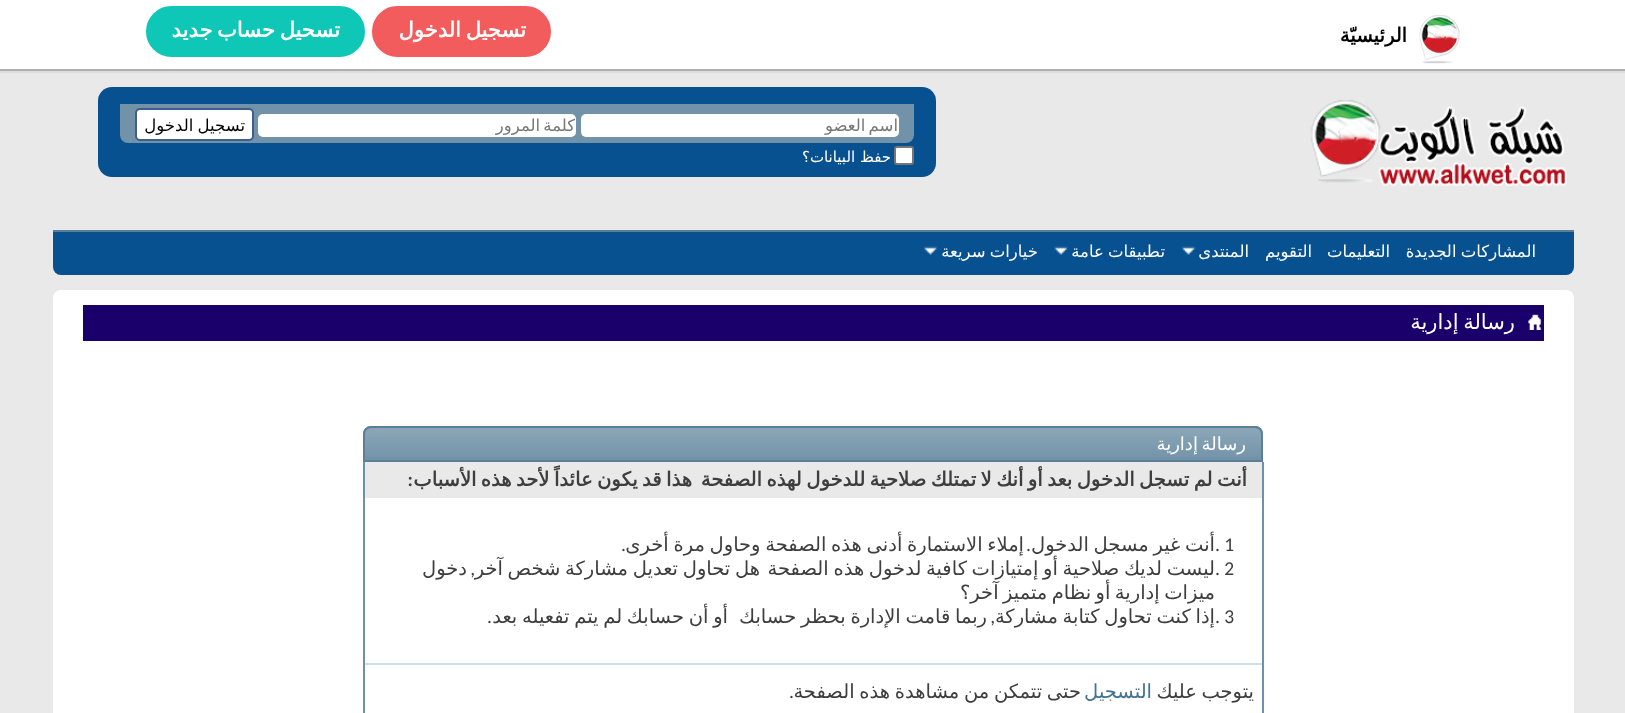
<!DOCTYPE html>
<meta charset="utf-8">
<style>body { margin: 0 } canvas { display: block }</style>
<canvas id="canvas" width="1625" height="713"></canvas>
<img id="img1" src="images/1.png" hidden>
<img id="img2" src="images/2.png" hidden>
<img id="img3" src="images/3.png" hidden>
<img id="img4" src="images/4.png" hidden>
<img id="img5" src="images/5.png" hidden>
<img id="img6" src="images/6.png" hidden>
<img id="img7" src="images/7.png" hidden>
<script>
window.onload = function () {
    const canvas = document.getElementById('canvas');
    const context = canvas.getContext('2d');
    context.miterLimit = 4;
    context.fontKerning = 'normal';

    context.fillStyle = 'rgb(233, 233, 233)';
    context.fillRect(0, 0, 1625, 713);
    context.fillStyle = 'rgb(221, 221, 221)';
    context.fillRect(0, 71, 1625, 2);
    context.fillStyle = 'rgb(175, 175, 175)';
    context.fillRect(0, 69, 1625, 2);
    context.fillStyle = 'rgb(255, 255, 255)';
    context.fillRect(0, 0, 1625, 69);
    context.drawImage(document.getElementById('img1'), 1419, 15, 41, 49);
    context.fillStyle = 'rgb(243, 92, 92)';
    context.beginPath();
    context.roundRect(373, 7, 177, 49, 24.5);
    context.fill();
    context.strokeStyle = 'rgb(243, 92, 92)';
    context.lineWidth = 2;
    context.stroke();
    context.fillStyle = 'rgb(15, 199, 182)';
    context.beginPath();
    context.roundRect(147, 7, 217, 49, 24.5);
    context.fill();
    context.strokeStyle = 'rgb(15, 199, 182)';
    context.stroke();
    context.drawImage(document.getElementById('img2'), 1310, 99, 257, 87);
    context.fillStyle = 'rgb(7, 81, 144)';
    context.beginPath();
    context.roundRect(98, 87, 838, 90, 14);
    context.fill();
    context.fillStyle = 'rgb(113, 146, 168)';
    context.beginPath();
    context.roundRect(120, 104, 794, 39, [0, 0, 8, 8]);
    context.fill();
    context.fillStyle = 'rgb(255, 255, 255)';
    context.beginPath();
    context.roundRect(581, 114, 318, 23, 5);
    context.fill();
    context.beginPath();
    context.roundRect(258, 114, 318, 23, 5);
    context.fill();
    context.beginPath();
    context.roundRect(136, 109, 117, 31, 4);
    context.fill();
    context.strokeStyle = 'rgb(65, 93, 141)';
    context.stroke();
    context.beginPath();
    context.roundRect(895, 147, 18, 17, 2);
    context.fill();
    context.strokeStyle = 'rgb(118, 118, 118)';
    context.stroke();
    context.fillStyle = 'rgb(7, 81, 144)';
    context.beginPath();
    context.roundRect(53, 230, 1521, 45, [0, 0, 8, 8]);
    context.fill();
    context.fillStyle = 'rgb(90, 127, 151)';
    context.fillRect(53, 230, 1521, 2);
    context.drawImage(document.getElementById('img3'), 1181, 246, 15, 9);
    context.drawImage(document.getElementById('img4'), 1054, 246, 14, 9);
    context.drawImage(document.getElementById('img5'), 923, 246, 15, 9);
    context.fillStyle = 'rgb(255, 255, 255)';
    context.beginPath();
    context.roundRect(53, 290, 1521, 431, 8);
    context.fill();
    context.fillStyle = 'rgb(26, 0, 107)';
    context.fillRect(83, 305, 1461, 36);
    context.drawImage(document.getElementById('img6'), 1528, 314, 15, 16);
    context.fillStyle = 'rgb(113, 146, 168)';
    context.beginPath();
    context.roundRect(363, 426, 900, 36, [8, 8, 0, 0]);
    context.fill();
    context.drawImage(document.getElementById('img7'), 363, 427, 900, 30);
    context.beginPath();
    context.roundRect(364, 427, 898, 34, [7, 7, 0, 0]);
    context.strokeStyle = 'rgb(90, 127, 151)';
    context.stroke();
    context.fillStyle = 'rgb(107, 145, 171)';
    context.fillRect(1262, 462, 2, 251);
    context.fillRect(363, 462, 2, 251);
    context.fillStyle = 'rgb(233, 233, 233)';
    context.fillRect(365, 462, 897, 36);
    context.fillStyle = 'rgb(206, 223, 235)';
    context.fillRect(365, 663, 897, 2);
    context.direction = 'rtl';
    context.font = 'bold 19.5px DejaVu Sans';
    context.fillStyle = 'rgb(0, 0, 0)';
    context.fillText('الرئيسيّة', 1407, 42);
    context.wordSpacing = '-2px';
    context.font = 'bold 21px DejaVu Sans';
    context.fillStyle = 'rgb(255, 255, 255)';
    context.fillText('تسجيل الدخول', 526, 37);
    context.fillText('تسحيل حساب جديد', 340, 37);
    context.save();
    context.beginPath();
    context.rect(582, 116, 315, 19);
    context.clip();
    context.font = '16.5px DejaVu Sans';
    context.fillStyle = 'rgb(119, 119, 119)';
    context.fillText('اسم العضو', 898, 131);
    context.restore();
    context.save();
    context.beginPath();
    context.rect(260, 116, 315, 19);
    context.clip();
    context.font = '16.5px DejaVu Sans';
    context.fillStyle = 'rgb(119, 119, 119)';
    context.fillText('كلمة المرور', 575, 131);
    context.restore();
    context.wordSpacing = '-1px';
    context.font = '16.5px DejaVu Sans';
    context.fillStyle = 'rgb(0, 0, 0)';
    context.fillText('تسجيل الدخول', 245, 131);
    context.wordSpacing = '0px';
    context.font = '15px DejaVu Sans';
    context.fillStyle = 'rgb(255, 255, 255)';
    context.fillText('حفظ البيانات؟', 891, 162);
    context.wordSpacing = '-1px';
    context.font = '16.5px DejaVu Sans';
    context.fillText('المشاركات الجديدة', 1536, 257);
    context.wordSpacing = '0px';
    context.fillText('التعليمات', 1390, 257);
    context.fillText('التقويم', 1312, 257);
    context.fillText('المنتدى', 1249, 257);
    context.wordSpacing = '-1px';
    context.fillText('تطبيقات عامة', 1165, 257);
    context.fillText('خيارات سريعة', 1038, 257);
    context.wordSpacing = '-2px';
    context.font = '21px DejaVu Sans';
    context.fillText('رسالة إدارية', 1515, 329);
    context.font = '18px DejaVu Sans';
    context.fillText('رسالة إدارية', 1246, 450);
    context.wordSpacing = '-1.75px';
    context.font = 'bold 19.5px DejaVu Sans';
    context.fillStyle = 'rgb(62, 62, 62)';
    context.fillText('أنت لم تسجل الدخول بعد أو أنك لا تمتلك صلاحية للدخول لهذه الصفحة', 1247, 486);
    context.fillText('هذا قد يكون عائداً لأحد هذه الأسباب', 692, 486);
    context.wordSpacing = '0px';
    context.font = 'bold 19.5px Carlito';
    context.fillText(':', 413, 486);
    context.direction = 'ltr';
    context.font = '19.5px Carlito';
    context.fillText('. 1', 1215, 551);
    context.wordSpacing = '-1.5px';
    context.direction = 'rtl';
    context.font = '19.5px DejaVu Sans';
    context.fillText('إملاء الاستمارة أدنى هذه الصفحة وحاول مرة أخرى', 1024, 551);
    context.fillText('أنت غير مسجل الدخول', 1215, 551);
    context.wordSpacing = '0px';
    context.font = '19.5px Carlito';
    context.fillText('.', 626, 551);
    context.fillText('.', 1031, 551);
    context.direction = 'ltr';
    context.fillText('. 2', 1215, 575);
    context.wordSpacing = '-1.5px';
    context.direction = 'rtl';
    context.font = '19.5px DejaVu Sans';
    context.fillText('ليست لديك صلاحية أو إمتيازات كافية لدخول هذه الصفحة', 1215, 575);
    context.fillText('هل تحاول تعديل مشاركة شخص آخر', 760, 575);
    context.wordSpacing = '0px';
    context.font = '19.5px Carlito';
    context.fillText(',', 475, 575);
    context.font = '19.5px DejaVu Sans';
    context.fillText('دخول', 467, 575);
    context.wordSpacing = '-1.75px';
    context.fillText('ميزات إدارية أو نظام متميز آخر؟', 1215, 599);
    context.wordSpacing = '0px';
    context.direction = 'ltr';
    context.font = '19.5px Carlito';
    context.fillText('. 3', 1215, 623);
    context.wordSpacing = '-1.5px';
    context.direction = 'rtl';
    context.font = '19.5px DejaVu Sans';
    context.fillText('إذا كنت تحاول كتابة مشاركة', 1215, 623);
    context.fillText('ربما قامت الإدارة بحظر حسابك', 987, 623);
    context.wordSpacing = '0px';
    context.font = '19.5px Carlito';
    context.fillText(',', 995, 623);
    context.wordSpacing = '-1.5px';
    context.font = '19.5px DejaVu Sans';
    context.fillText('أو أن حسابك لم يتم تفعيله بعد', 728, 623);
    context.wordSpacing = '0px';
    context.font = '19.5px Carlito';
    context.fillText('.', 492, 623);
    context.wordSpacing = '-1.75px';
    context.font = '19.5px DejaVu Sans';
    context.fillText('يتوجب عليك', 1254, 698);
    context.wordSpacing = '0px';
    context.fillStyle = 'rgb(65, 115, 148)';
    context.fillText('التسجيل', 1152, 698);
    context.wordSpacing = '-1.5px';
    context.fillStyle = 'rgb(62, 62, 62)';
    context.fillText('حتى تتمكن من مشاهدة هذه الصفحة', 1081, 698);
    context.wordSpacing = '0px';
    context.font = '19.5px Carlito';
    context.fillText('.', 794, 698);
};
</script>
